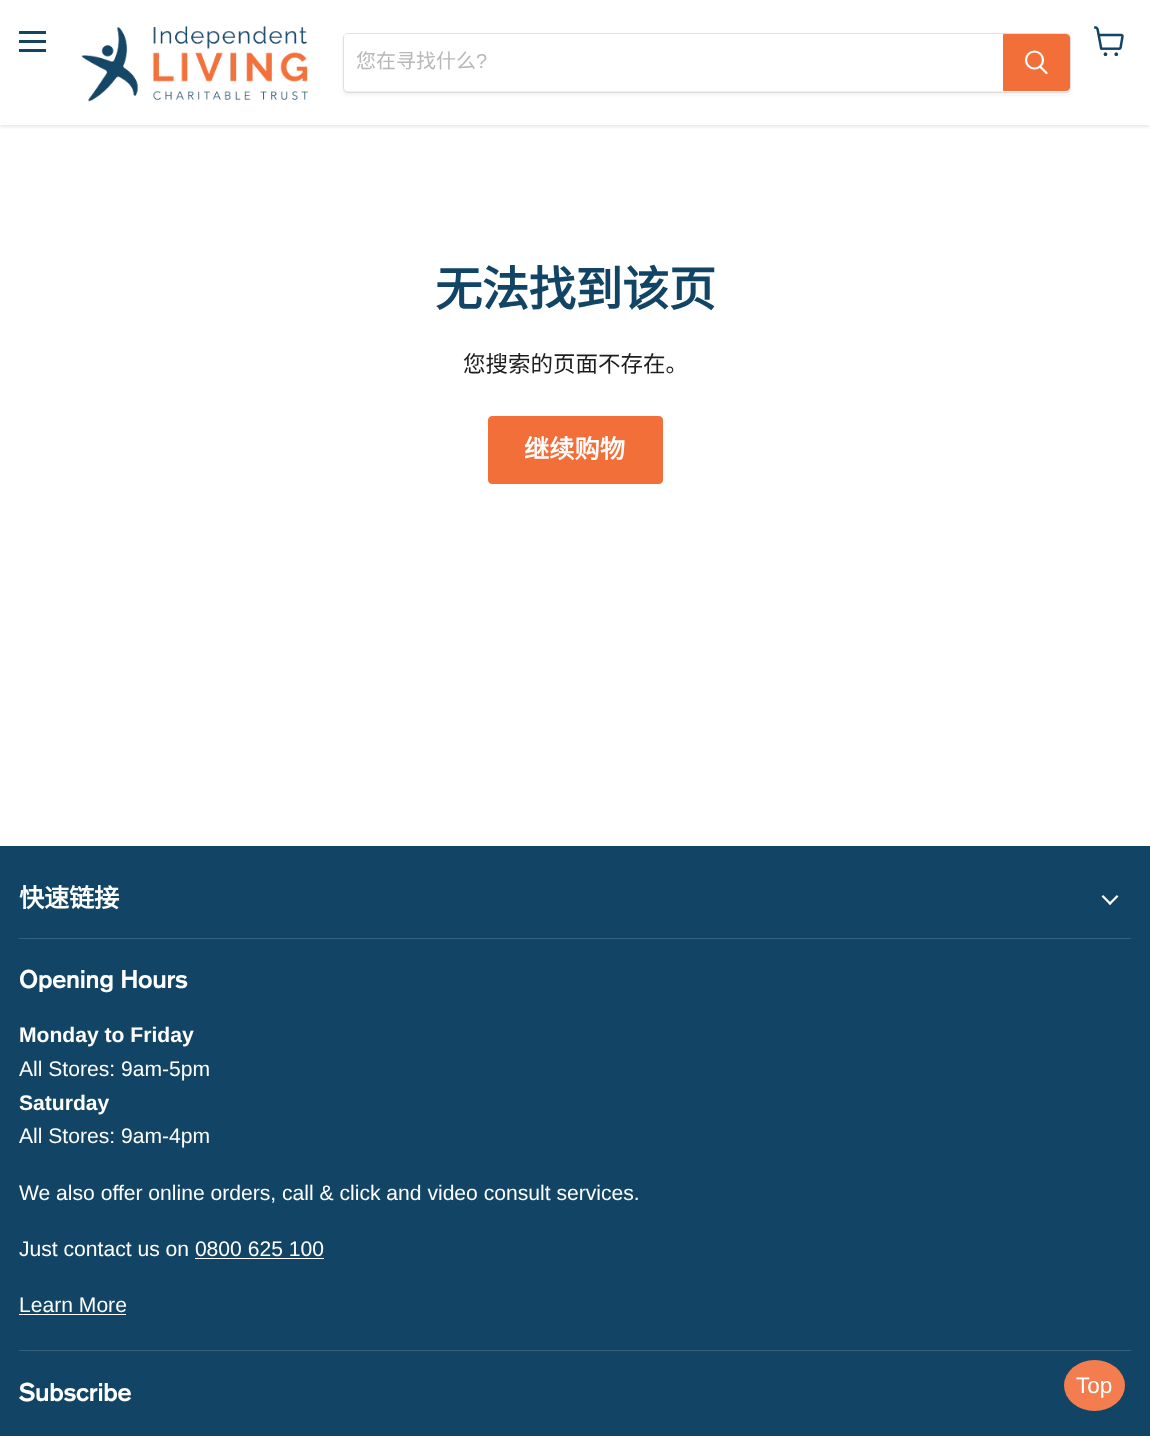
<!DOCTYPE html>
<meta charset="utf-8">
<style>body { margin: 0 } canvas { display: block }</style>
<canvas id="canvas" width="1150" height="1436"></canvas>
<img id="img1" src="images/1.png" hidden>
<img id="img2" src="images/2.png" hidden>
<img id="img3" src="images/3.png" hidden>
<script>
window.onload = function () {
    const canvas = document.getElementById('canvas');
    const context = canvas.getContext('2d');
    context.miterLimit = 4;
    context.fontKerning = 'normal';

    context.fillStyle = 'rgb(255, 255, 255)';
    context.fillRect(0, 0, 1150, 1436);
    context.save();
    context.beginPath();
    context.rect(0, 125, 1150, 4);
    context.clip();
    context.fillStyle = 'rgba(128, 128, 128, 0.25)';
    context.filter = 'blur(2.5px)';
    context.beginPath();
    context.rect(0, 1, 1150, 125);
    context.fill();
    context.filter = 'none';
    context.restore();
    context.fillStyle = 'rgb(18, 69, 101)';
    context.fillRect(19, 31, 27, 3);
    context.fillRect(19, 40, 27, 3);
    context.fillRect(19, 49, 27, 3);
    context.drawImage(document.getElementById('img1'), 1094, 26, 30, 30);
    context.drawImage(document.getElementById('img2'), 81, 26, 227, 76);
    context.fillStyle = 'rgba(128, 128, 128, 0.11)';
    context.filter = 'blur(2px)';
    context.beginPath();
    context.roundRect(343, 35, 728, 60, 5);
    context.fill();
    context.filter = 'none';
    context.beginPath();
    context.roundRect(343.5, 33.5, 727, 59, 4.5);
    context.strokeStyle = 'rgba(128, 128, 128, 0.2)';
    context.stroke();
    context.fillStyle = 'rgb(255, 255, 255)';
    context.beginPath();
    context.roundRect(344, 34, 659, 57, [4, 0, 0, 4]);
    context.fill();
    context.fillStyle = 'rgb(242, 111, 58)';
    context.beginPath();
    context.roundRect(1003.5, 34.5, 66, 56, [0, 3.5, 3.5, 0]);
    context.fill();
    context.strokeStyle = 'rgb(242, 111, 58)';
    context.stroke();
    context.beginPath();
    context.moveTo(1046.5, 73);
    context.lineTo(1040.5, 67);
    context.strokeStyle = 'rgb(255, 255, 255)';
    context.lineWidth = 2.2;
    context.lineCap = 'round';
    context.stroke();
    context.beginPath();
    context.arc(1034.5, 60, 8.5, 0, 2 * Math.PI);
    context.stroke();
    context.beginPath();
    context.roundRect(488.5, 416.5, 174, 67, 3.5);
    context.fill();
    context.strokeStyle = 'rgb(242, 111, 58)';
    context.lineWidth = 1;
    context.stroke();
    context.fillStyle = 'rgb(18, 69, 101)';
    context.fillRect(0, 846, 1150, 590);
    context.fillStyle = 'rgb(54, 97, 124)';
    context.fillRect(19, 938, 1112, 1);
    context.drawImage(document.getElementById('img3'), 1101, 895, 18, 10);
    context.fillRect(19, 1350, 1112, 1);
    context.fillStyle = 'rgb(255, 255, 255)';
    context.fillRect(195, 1258, 129, 1);
    context.fillRect(19, 1314, 107, 1);
    context.fillStyle = 'rgb(243, 125, 78)';
    context.beginPath();
    context.ellipse(1094.5, 1385.5, 30.5, 25.5, 0, 0, 2 * Math.PI);
    context.fill();
    context.font = '20px Noto Sans CJK SC';
    context.fillStyle = 'rgb(184, 184, 184)';
    context.fillText('您在寻找什么', 356, 68);
    context.font = '20px Liberation Sans';
    context.fillText('?', 476, 68);
    context.letterSpacing = '-0.5px';
    context.font = 'bold 47.25px Noto Sans CJK SC';
    context.fillStyle = 'rgb(18, 69, 101)';
    context.fillText('无法找到该页', 435, 306);
    context.letterSpacing = '0px';
    context.font = '22.5px Noto Sans CJK SC';
    context.fillStyle = 'rgb(29, 29, 29)';
    context.fillText('您搜索的页面不存在。', 463, 372);
    context.font = 'bold 25.25px Noto Sans CJK SC';
    context.fillStyle = 'rgb(255, 255, 255)';
    context.fillText('继续购物', 524, 458);
    context.letterSpacing = '-0.25px';
    context.fillText('快速链接', 19, 907);
    context.font = 'bold 25.25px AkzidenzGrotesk';
    context.fillText('Opening Hours', 19, 988);
    context.letterSpacing = '0px';
    context.font = 'bold 21.1px Liberation Sans';
    context.fillText('Monday to Friday', 19, 1042);
    context.font = '21.1px Liberation Sans';
    context.fillText('All Stores: 9am-5pm', 19, 1076);
    context.font = 'bold 21.1px Liberation Sans';
    context.fillText('Saturday', 19, 1110);
    context.font = '21.1px Liberation Sans';
    context.fillText('All Stores: 9am-4pm', 19, 1143);
    context.fillText('We also offer online orders, call & click and video consult services.', 19, 1200);
    context.fillText('Just contact us on 0800 625 100', 19, 1256);
    context.fillText('Learn More', 19, 1312);
    context.letterSpacing = '-0.25px';
    context.font = 'bold 25.25px AkzidenzGrotesk';
    context.fillText('Subscribe', 19, 1401);
    context.letterSpacing = '0px';
    context.font = '22.5px Liberation Sans';
    context.fillText('Top', 1076, 1393);
};
</script>
